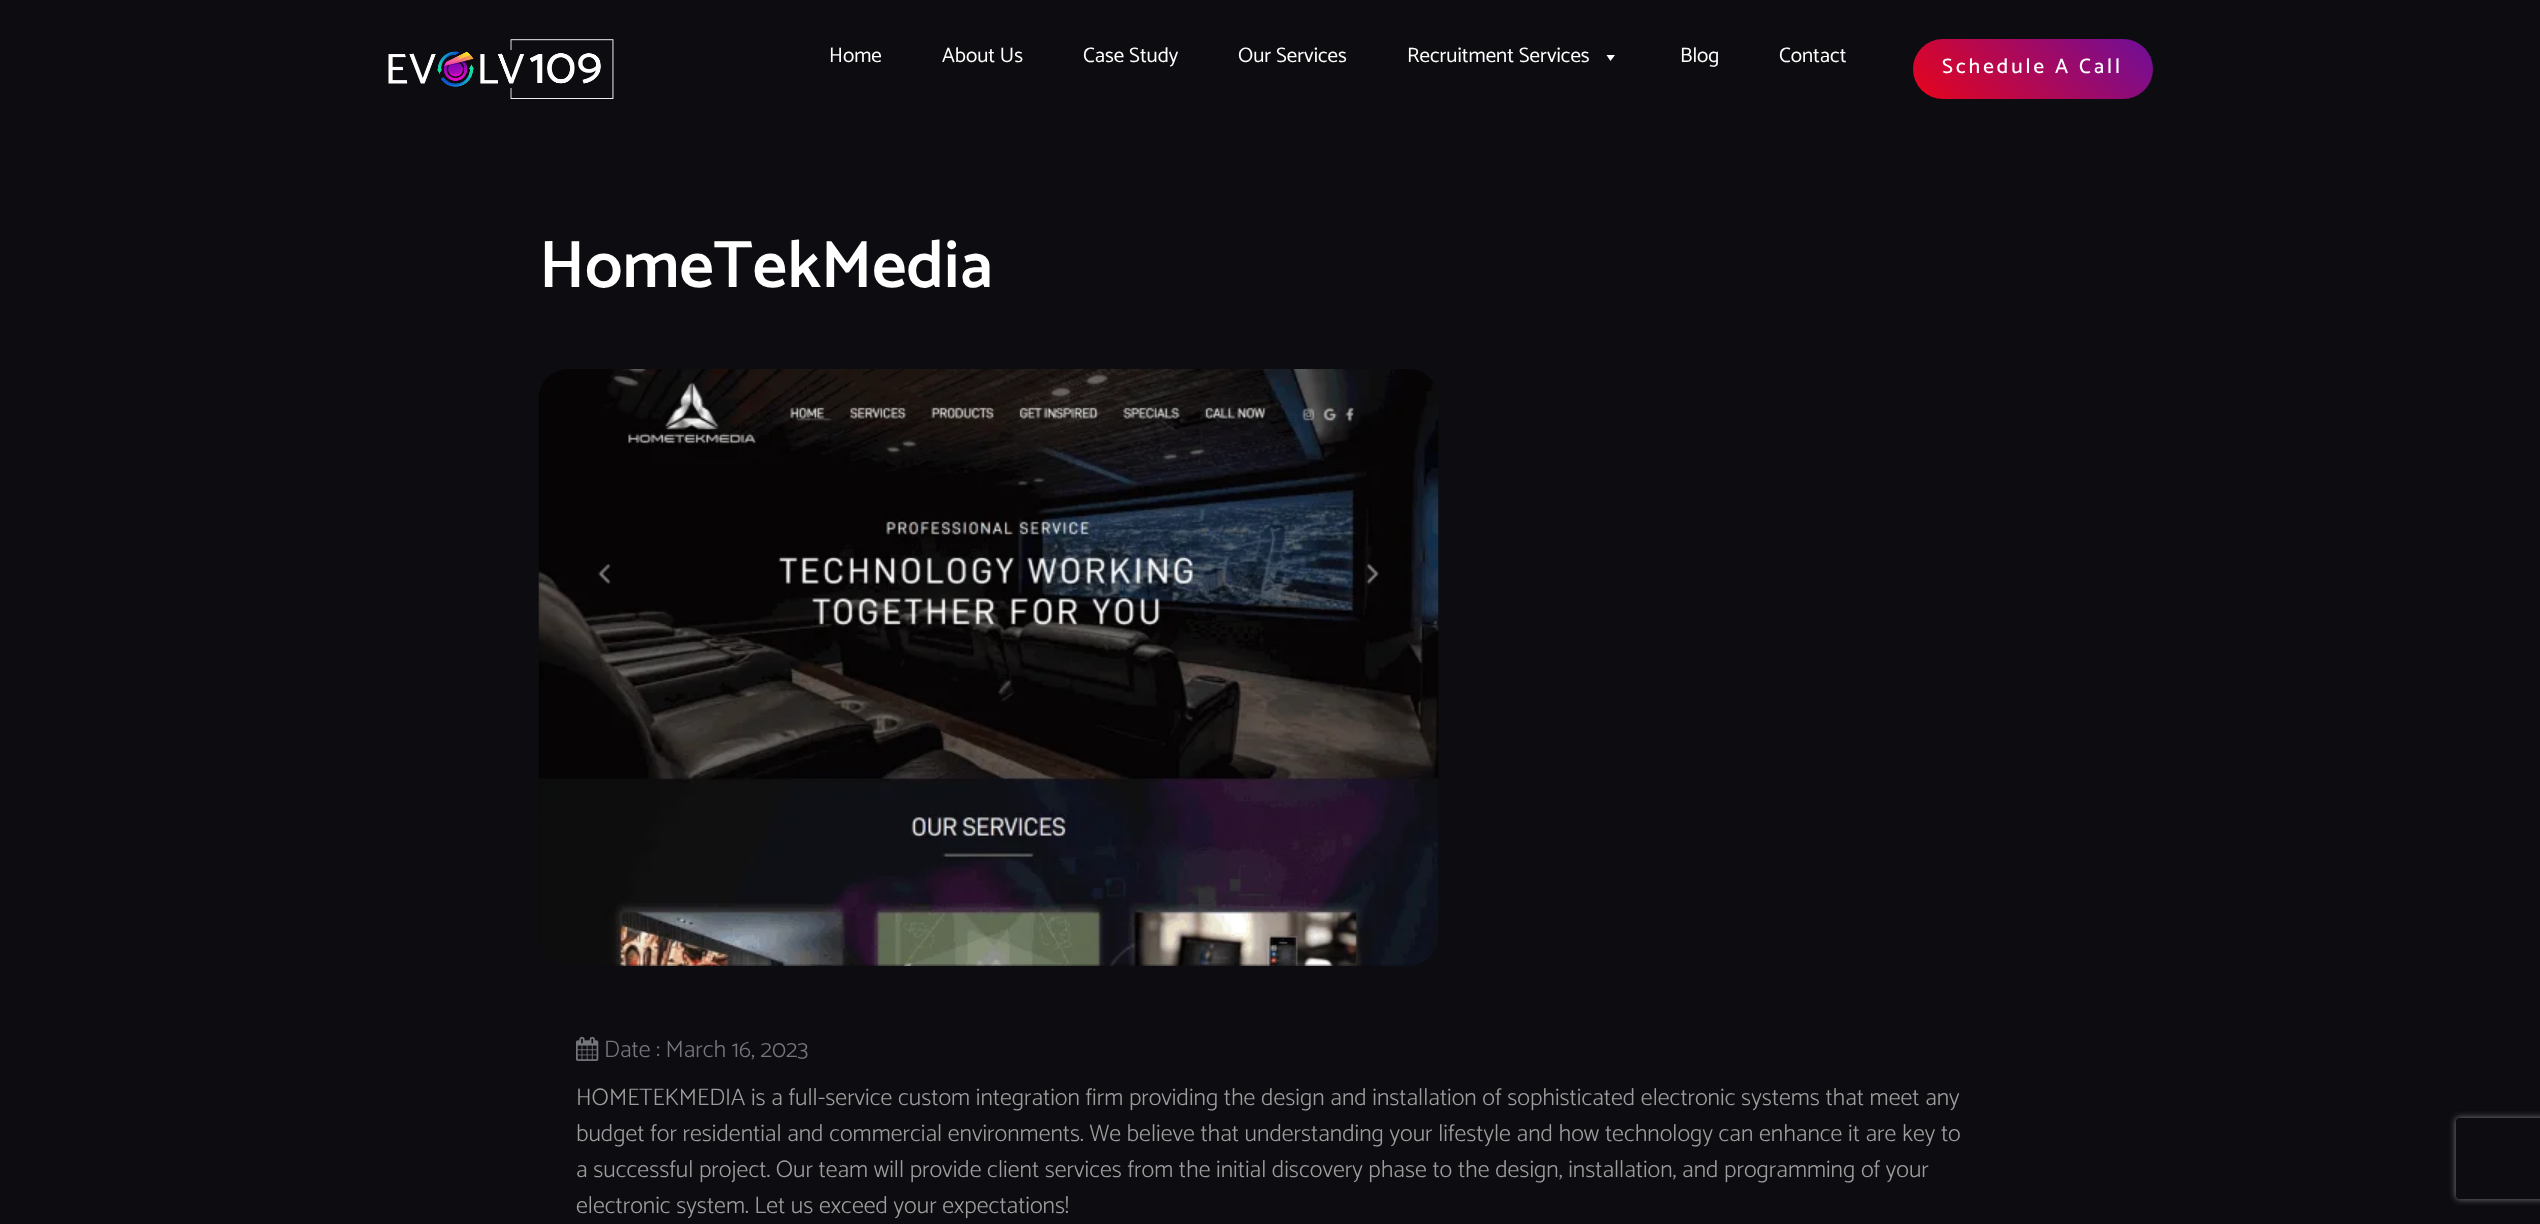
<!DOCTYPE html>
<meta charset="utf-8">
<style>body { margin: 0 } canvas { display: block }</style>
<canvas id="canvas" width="2540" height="1224"></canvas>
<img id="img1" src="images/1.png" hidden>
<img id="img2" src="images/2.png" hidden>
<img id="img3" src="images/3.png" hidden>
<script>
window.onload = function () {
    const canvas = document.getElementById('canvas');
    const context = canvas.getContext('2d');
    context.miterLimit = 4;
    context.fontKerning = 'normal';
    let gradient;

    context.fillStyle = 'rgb(13, 13, 17)';
    context.fillRect(0, 0, 2540, 1224);
    context.drawImage(document.getElementById('img1'), 388, 39, 226, 60);
    context.fillStyle = 'rgb(255, 255, 255)';
    context.beginPath();
    context.moveTo(1615, 55);
    context.lineTo(1610.5, 61);
    context.lineTo(1606.5, 55);
    context.closePath();
    context.fill();
    gradient = context.createLinearGradient(2003, 249, 2303, -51);
    gradient.addColorStop(0, 'rgb(255, 2, 2)');
    gradient.addColorStop(1, 'rgb(14, 22, 255)');
    context.fillStyle = gradient;
    context.beginPath();
    context.roundRect(1913, 39, 240, 60, 30);
    context.fill();
    context.drawImage(document.getElementById('img2'), 538, 369, 901, 597);
    context.drawImage(document.getElementById('img3'), 576, 1036, 23, 25);
    context.save();
    context.beginPath();
    context.moveTo(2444, 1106);
    context.lineTo(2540, 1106);
    context.lineTo(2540, 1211);
    context.lineTo(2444, 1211);
    context.closePath();
    context.moveTo(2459, 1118);
    context.lineTo(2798, 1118);
    context.bezierCurveTo(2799.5, 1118, 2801, 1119.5, 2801, 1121);
    context.lineTo(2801, 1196);
    context.bezierCurveTo(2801, 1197.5, 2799.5, 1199, 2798, 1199);
    context.lineTo(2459, 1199);
    context.bezierCurveTo(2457.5, 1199, 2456, 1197.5, 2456, 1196);
    context.lineTo(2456, 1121);
    context.bezierCurveTo(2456, 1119.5, 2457.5, 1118, 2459, 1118);
    context.closePath();
    context.clip('evenodd');
    context.fillStyle = 'rgb(128, 128, 128)';
    context.filter = 'blur(3.5px)';
    context.beginPath();
    context.roundRect(2456, 1118, 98, 81, 3);
    context.fill();
    context.filter = 'none';
    context.restore();
    context.font = '21px Catamaran';
    context.fillStyle = 'rgb(255, 255, 255)';
    context.fillText('Home', 829, 62);
    context.fillText('About Us', 942, 62);
    context.fillText('Case Study', 1083, 62);
    context.fillText('Our Services', 1238, 62);
    context.fillText('Recruitment Services', 1407, 62);
    context.fillText('Blog', 1680, 62);
    context.fillText('Contact', 1779, 62);
    context.letterSpacing = '3px';
    context.font = '500 21px Catamaran';
    context.fillText('Schedule A Call', 1942, 73);
    context.letterSpacing = '0px';
    context.font = '600 67.25px Catamaran';
    context.fillText('HomeTekMedia', 539, 287);
    context.font = '300 24px Catamaran';
    context.fillStyle = 'rgb(117, 117, 127)';
    context.fillText('Date : March 16, 2023', 604, 1057);
    context.fillStyle = 'rgb(156, 156, 156)';
    context.fillText('HOMETEKMEDIA is a full-service custom integration firm providing the design and installation of sophisticated electronic systems that meet any', 576, 1105);
    context.fillText('budget for residential and commercial environments. We believe that understanding your lifestyle and how technology can enhance it are key to', 576, 1141);
    context.fillText('a successful project. Our team will provide client services from the initial discovery phase to the design, installation, and programming of your', 576, 1177);
    context.fillText('electronic system. Let us exceed your expectations!', 576, 1213);
};
</script>
